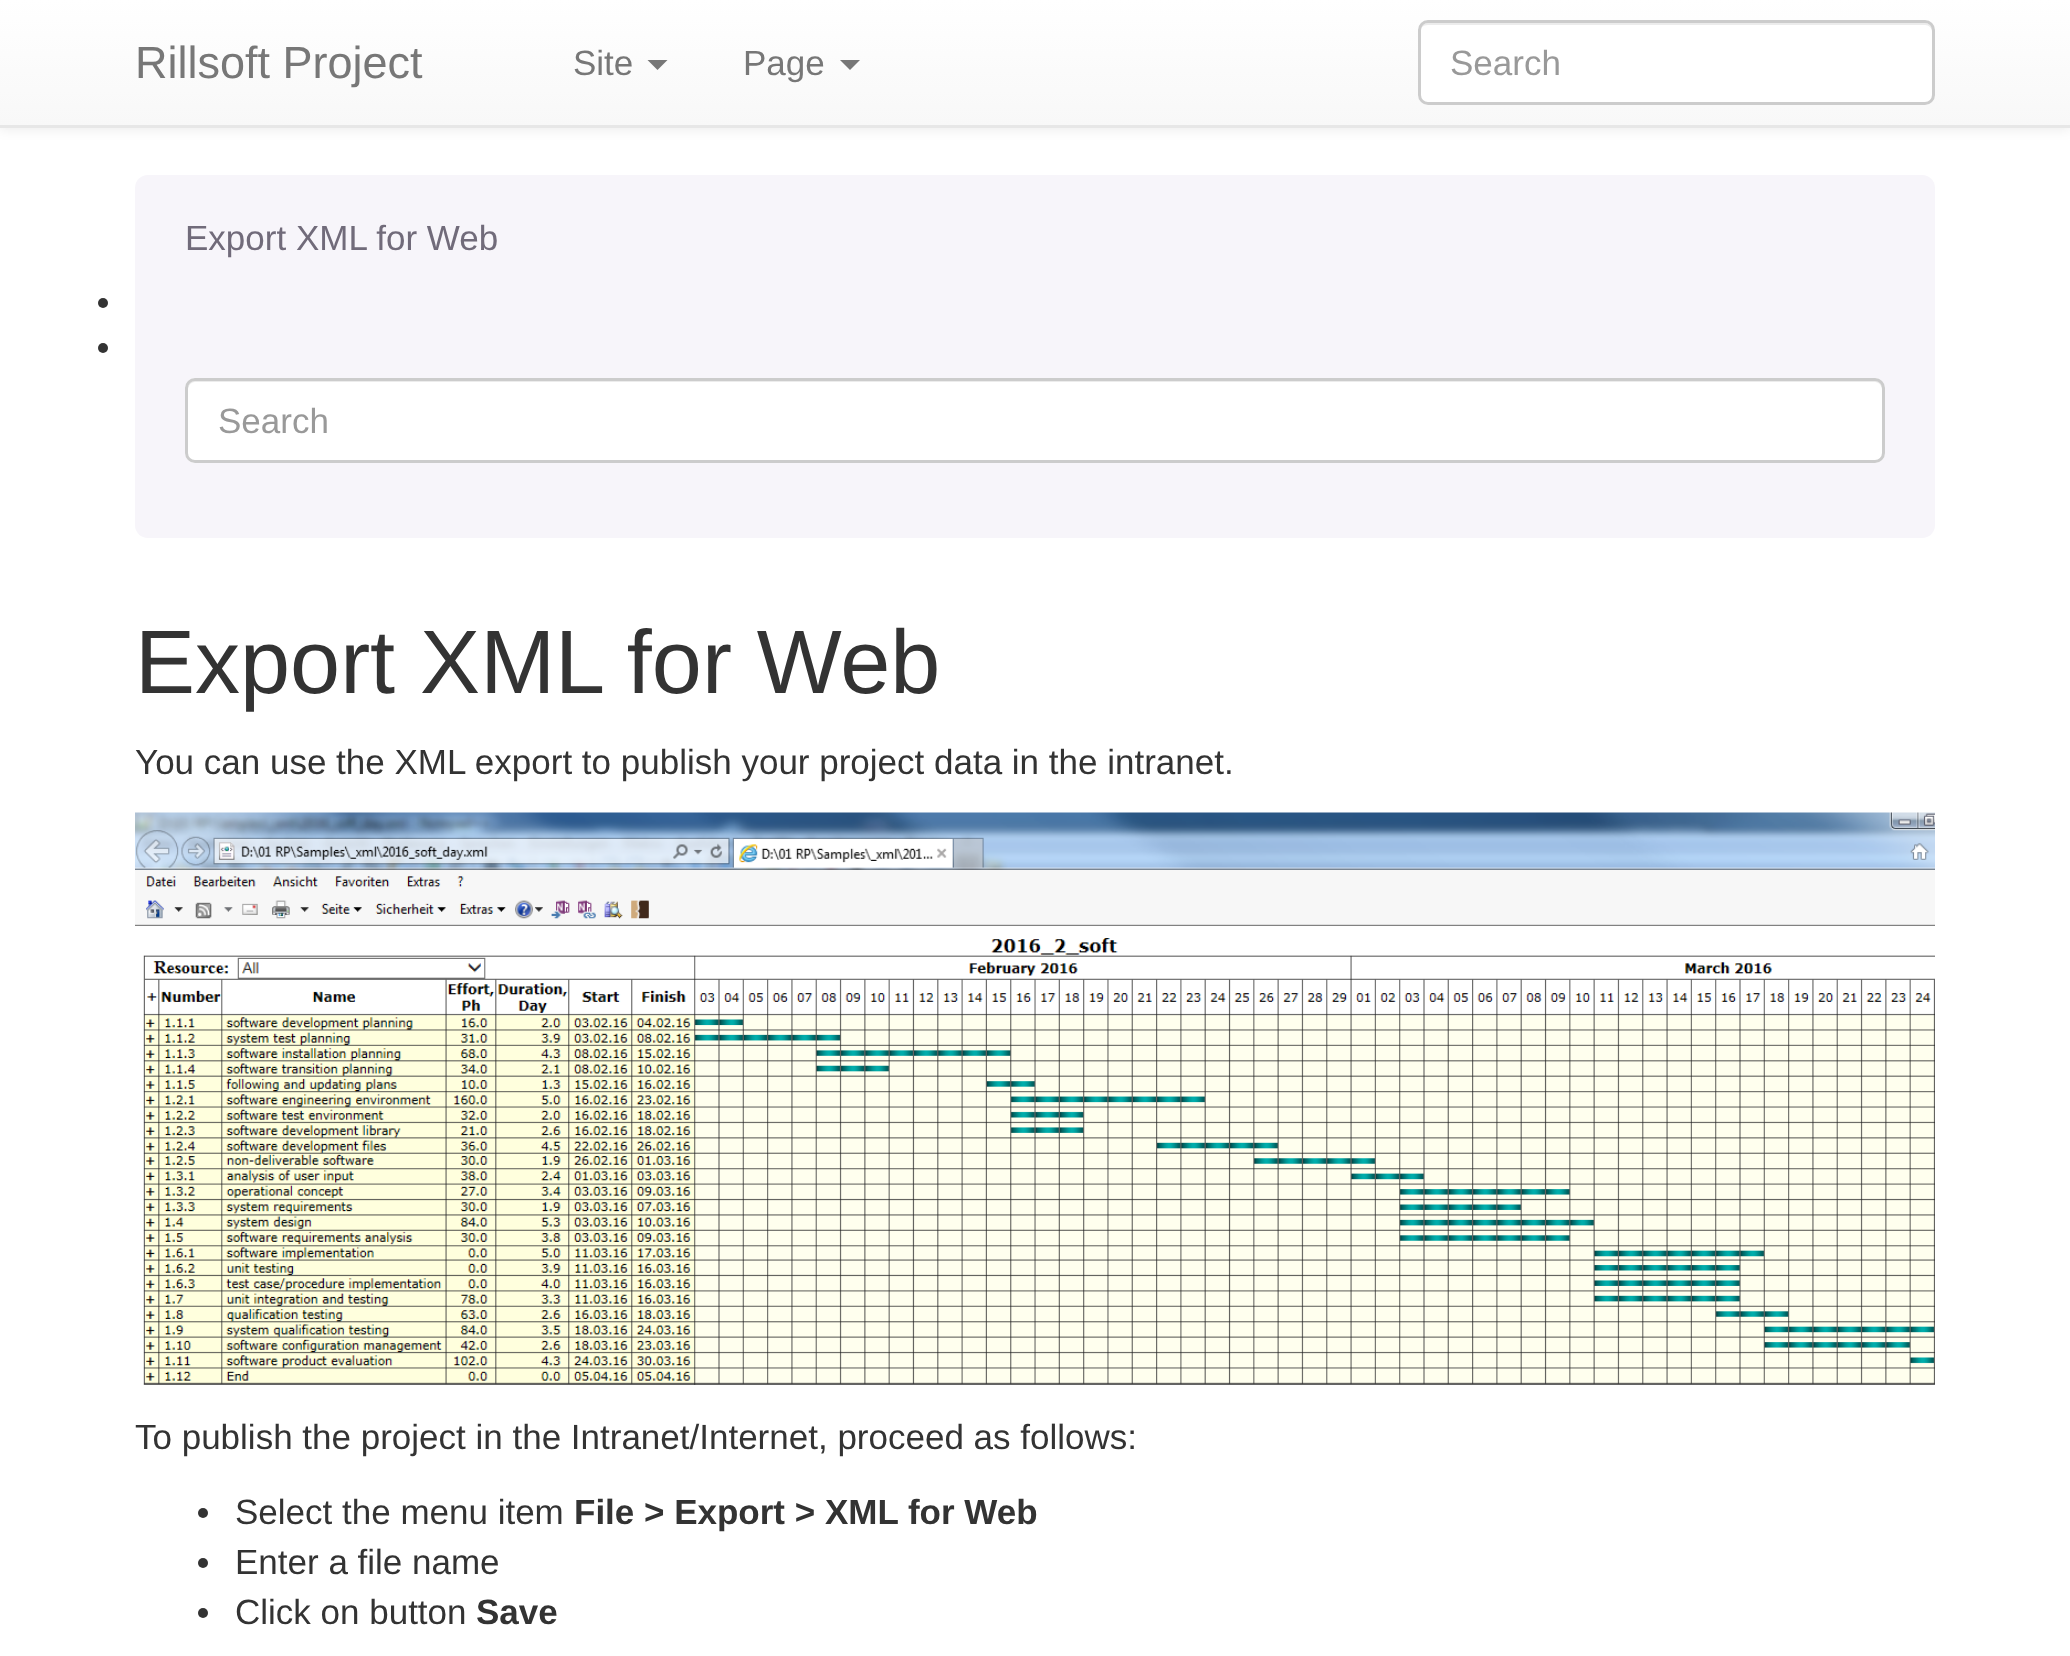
<!DOCTYPE html>
<meta charset="utf-8">
<style>body { margin: 0 } canvas { display: block }</style>
<canvas id="canvas" width="2070" height="1656"></canvas>
<img id="img1" src="images/1.png" hidden>
<script>
window.onload = function () {
    const canvas = document.getElementById('canvas');
    const context = canvas.getContext('2d');
    context.miterLimit = 4;
    context.fontKerning = 'normal';
    let gradient;

    context.fillStyle = 'rgb(255, 255, 255)';
    context.fillRect(0, 0, 2070, 1656);
    context.fillStyle = 'rgba(0, 0, 0, 0.07)';
    context.filter = 'blur(6px)';
    context.beginPath();
    context.rect(0, 3, 2070, 127);
    context.fill();
    context.filter = 'none';
    gradient = context.createLinearGradient(1035, 0, 1035, 125);
    gradient.addColorStop(0, 'rgb(255, 255, 255)');
    gradient.addColorStop(1, 'rgb(248, 248, 248)');
    context.fillStyle = gradient;
    context.fillRect(0, 0, 2070, 125);
    context.fillStyle = 'rgb(231, 231, 231)';
    context.fillRect(0, 125, 2070, 3);
    context.fillStyle = 'rgb(119, 119, 119)';
    context.beginPath();
    context.moveTo(647.5, 60);
    context.lineTo(667.5, 60);
    context.lineTo(657.5, 70);
    context.closePath();
    context.fill();
    context.beginPath();
    context.moveTo(840, 60);
    context.lineTo(860, 60);
    context.lineTo(850, 70);
    context.closePath();
    context.fill();
    context.fillStyle = 'rgb(255, 255, 255)';
    context.beginPath();
    context.roundRect(1418, 20, 517, 85, 10);
    context.fill();
    context.fillStyle = 'rgb(236, 236, 236)';
    context.beginPath();
    context.moveTo(1428, 25);
    context.lineTo(1925, 25);
    context.bezierCurveTo(1929, 25, 1932, 28, 1932, 32);
    context.lineTo(1932, 99);
    context.bezierCurveTo(1933, 98, 1933, 96, 1933, 95);
    context.lineTo(1933, 31);
    context.bezierCurveTo(1933, 27, 1929, 23, 1925, 23);
    context.lineTo(1428, 23);
    context.bezierCurveTo(1424, 23, 1420, 27, 1420, 31);
    context.lineTo(1420, 32);
    context.bezierCurveTo(1420, 28, 1423, 25, 1428, 25);
    context.closePath();
    context.fill();
    context.beginPath();
    context.roundRect(1419.5, 21.5, 514, 82, 8.5);
    context.strokeStyle = 'rgb(204, 204, 204)';
    context.lineWidth = 3;
    context.stroke();
    context.fillStyle = 'rgb(247, 245, 250)';
    context.beginPath();
    context.roundRect(135, 175, 1800, 363, 13);
    context.fill();
    context.fillStyle = 'rgb(51, 51, 51)';
    context.beginPath();
    context.arc(103, 303, 5, 0, 2 * Math.PI);
    context.fill();
    context.beginPath();
    context.arc(103, 348, 5, 0, 2 * Math.PI);
    context.fill();
    context.fillStyle = 'rgb(255, 255, 255)';
    context.beginPath();
    context.roundRect(185, 378, 1700, 85, 10);
    context.fill();
    context.fillStyle = 'rgb(236, 236, 236)';
    context.beginPath();
    context.moveTo(195, 382);
    context.lineTo(1875, 382);
    context.bezierCurveTo(1879, 382, 1882, 386, 1882, 390);
    context.lineTo(1882, 456);
    context.bezierCurveTo(1883, 455, 1883, 453, 1883, 452);
    context.lineTo(1883, 388);
    context.bezierCurveTo(1883, 384, 1879, 380, 1875, 380);
    context.lineTo(196, 380);
    context.bezierCurveTo(192, 380, 188, 384, 188, 388);
    context.lineTo(188, 390);
    context.bezierCurveTo(188, 386, 191, 382, 195, 382);
    context.closePath();
    context.fill();
    context.beginPath();
    context.roundRect(186.5, 379.5, 1697, 82, 8.5);
    context.stroke();
    context.drawImage(document.getElementById('img1'), 135, 812, 1800, 573);
    context.fillStyle = 'rgb(51, 51, 51)';
    context.beginPath();
    context.arc(203, 1513, 5, 0, 2 * Math.PI);
    context.fill();
    context.beginPath();
    context.arc(203, 1563, 5, 0, 2 * Math.PI);
    context.fill();
    context.beginPath();
    context.arc(203, 1613, 5, 0, 2 * Math.PI);
    context.fill();
    context.font = '45px Liberation Sans';
    context.fillStyle = 'rgb(119, 119, 119)';
    context.fillText('Rillsoft Project', 135, 78);
    context.font = '35px Liberation Sans';
    context.fillText('Site', 573, 75);
    context.fillText('Page', 743, 75);
    context.fillStyle = 'rgb(153, 153, 153)';
    context.fillText('Search', 1450, 75);
    context.fillStyle = 'rgb(113, 107, 122)';
    context.fillText('Export XML for Web', 185, 250);
    context.fillStyle = 'rgb(153, 153, 153)';
    context.fillText('Search', 218, 433);
    context.font = '90px Liberation Sans';
    context.fillStyle = 'rgb(51, 51, 51)';
    context.fillText('Export XML for Web', 135, 693);
    context.font = '35px Liberation Sans';
    context.fillText('You can use the XML export to publish your project data in the intranet.', 135, 774);
    context.fillText('To publish the project in the Intranet/Internet, proceed as follows:', 135, 1449);
    context.fillText('Select the menu item', 235, 1524);
    context.font = 'bold 35px Liberation Sans';
    context.fillText('File > Export > XML for Web', 574, 1524);
    context.font = '35px Liberation Sans';
    context.fillText('Enter a file name', 235, 1574);
    context.fillText('Click on button', 235, 1624);
    context.font = 'bold 35px Liberation Sans';
    context.fillText('Save', 476, 1624);
};
</script>
